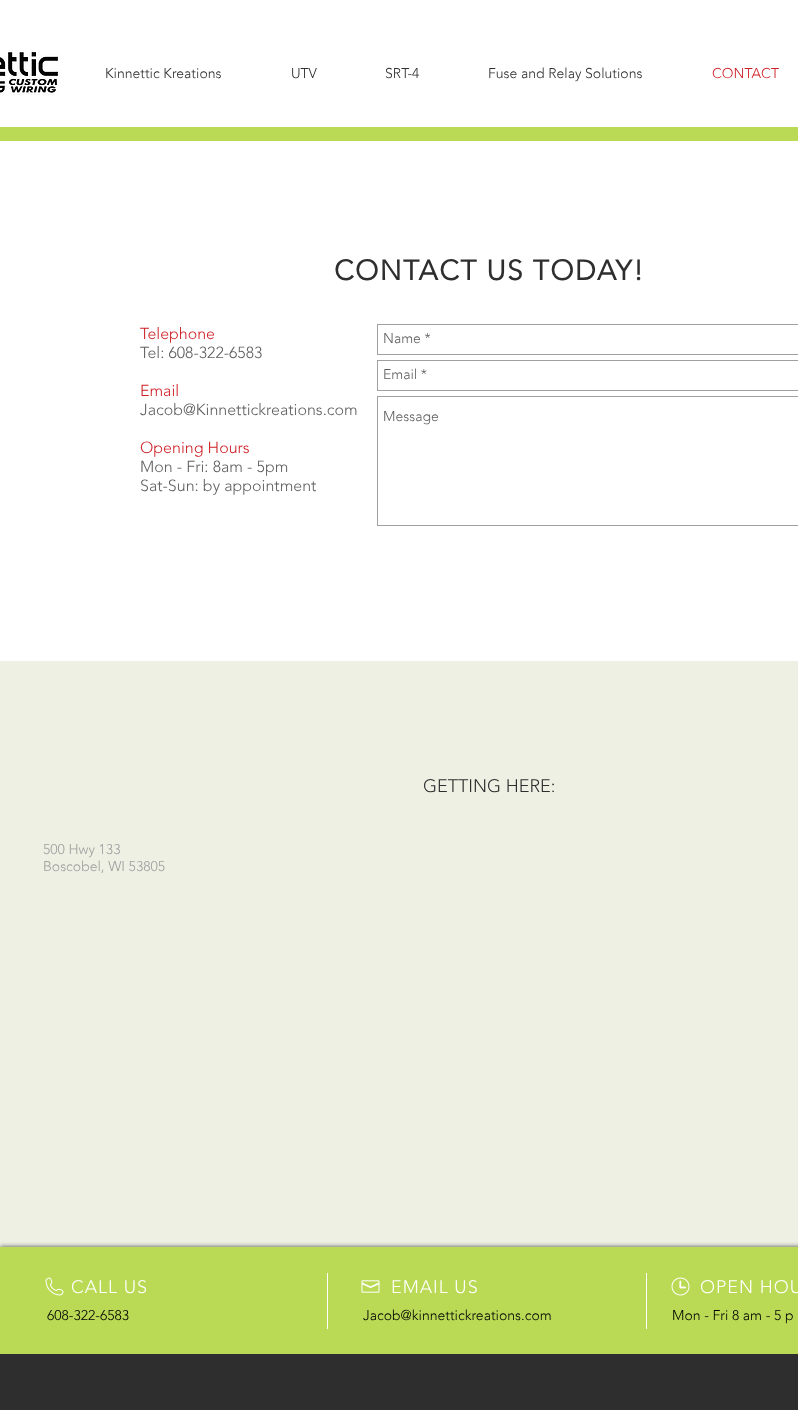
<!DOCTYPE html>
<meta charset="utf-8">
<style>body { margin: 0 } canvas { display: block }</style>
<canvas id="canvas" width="798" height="1410"></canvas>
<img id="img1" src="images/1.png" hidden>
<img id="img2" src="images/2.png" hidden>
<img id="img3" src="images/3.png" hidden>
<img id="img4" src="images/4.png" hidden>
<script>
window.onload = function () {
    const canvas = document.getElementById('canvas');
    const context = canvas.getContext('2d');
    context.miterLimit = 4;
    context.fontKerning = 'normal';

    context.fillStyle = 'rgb(255, 255, 255)';
    context.fillRect(0, 0, 798, 1410);
    context.drawImage(document.getElementById('img1'), 0, 50, 61, 45);
    context.fillStyle = 'rgb(186, 218, 85)';
    context.fillRect(0, 127, 798, 14);
    context.strokeStyle = 'rgb(160, 160, 159)';
    context.strokeRect(377.5, 324.5, 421, 30);
    context.strokeRect(377.5, 360.5, 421, 30);
    context.strokeRect(377.5, 396.5, 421, 129);
    context.fillStyle = 'rgb(238, 240, 228)';
    context.fillRect(0, 661, 798, 586);
    context.fillStyle = 'rgba(0, 0, 0, 0.7)';
    context.filter = 'blur(2.5px)';
    context.beginPath();
    context.rect(0, 1247, 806, 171);
    context.fill();
    context.filter = 'none';
    context.fillStyle = 'rgb(47, 46, 46)';
    context.fillRect(0, 1354, 798, 56);
    context.fillStyle = 'rgb(186, 218, 85)';
    context.fillRect(0, 1247, 798, 107);
    context.drawImage(document.getElementById('img2'), 45, 1277, 19, 19);
    context.fillStyle = 'rgb(255, 255, 255)';
    context.fillRect(327, 1273, 1, 56);
    context.drawImage(document.getElementById('img3'), 361, 1280, 19, 13);
    context.fillRect(646, 1273, 1, 56);
    context.drawImage(document.getElementById('img4'), 671, 1277, 19, 19);
    context.font = '300 14px "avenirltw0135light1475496"';
    context.fillStyle = 'rgb(47, 46, 46)';
    context.fillText('Kinnettic Kreations', 105, 78);
    context.fillText('UTV', 291, 78);
    context.fillText('SRT-4', 385, 78);
    context.fillText('Fuse and Relay Solutions', 488, 78);
    context.fillStyle = 'rgb(206, 32, 38)';
    context.fillText('CONTACT', 712, 78);
    context.letterSpacing = '1.4px';
    context.font = 'bold 28px "avenirltw0135light1475496"';
    context.fillStyle = 'rgb(47, 46, 46)';
    context.fillText('CONTACT US TODAY!', 334, 280);
    context.letterSpacing = '0px';
    context.font = '300 16px "avenirltw0135light1475496"';
    context.fillStyle = 'rgb(206, 32, 38)';
    context.fillText('Telephone', 140, 339);
    context.fillStyle = 'rgb(96, 94, 94)';
    context.fillText('Tel: 608-322-6583', 140, 358);
    context.fillStyle = 'rgb(206, 32, 38)';
    context.fillText('Email', 140, 396);
    context.fillStyle = 'rgb(96, 94, 94)';
    context.fillText('Jacob@Kinnettickreations.com', 140, 415);
    context.fillStyle = 'rgb(206, 32, 38)';
    context.fillText('Opening Hours', 140, 453);
    context.fillStyle = 'rgb(96, 94, 94)';
    context.fillText('Mon - Fri: 8am - 5pm', 140, 472);
    context.fillText('Sat-Sun: by appointment', 140, 491);
    context.font = '300 14px "avenirltw0135light1475496"';
    context.fillText('Name *', 383, 343);
    context.fillText('Email *', 383, 379);
    context.fillText('Message', 383, 421);
    context.font = '300 18px "avenirltw0135light1475496"';
    context.fillStyle = 'rgb(47, 46, 46)';
    context.fillText('GETTING HERE:', 423, 792);
    context.font = '300 14px "avenirltw0135light1475496"';
    context.fillStyle = 'rgb(160, 160, 159)';
    context.fillText('500 Hwy 133', 43, 854);
    context.fillText('Boscobel, WI 53805', 43, 871);
    context.letterSpacing = '1px';
    context.font = '300 18px "avenirltw0135light1475496"';
    context.fillStyle = 'rgb(255, 255, 255)';
    context.fillText('CALL US', 71, 1293);
    context.fillText('EMAIL US', 391, 1293);
    context.fillText('OPEN HOU', 700, 1293);
    context.letterSpacing = '0px';
    context.font = '300 14px "avenirltw0135light1475496"';
    context.fillStyle = 'rgb(0, 0, 0)';
    context.fillText('608-322-6583', 47, 1320);
    context.fillText('Jacob@kinnettickreations.com', 363, 1320);
    context.fillText('Mon - Fri 8 am - 5 p', 672, 1320);
};
</script>
